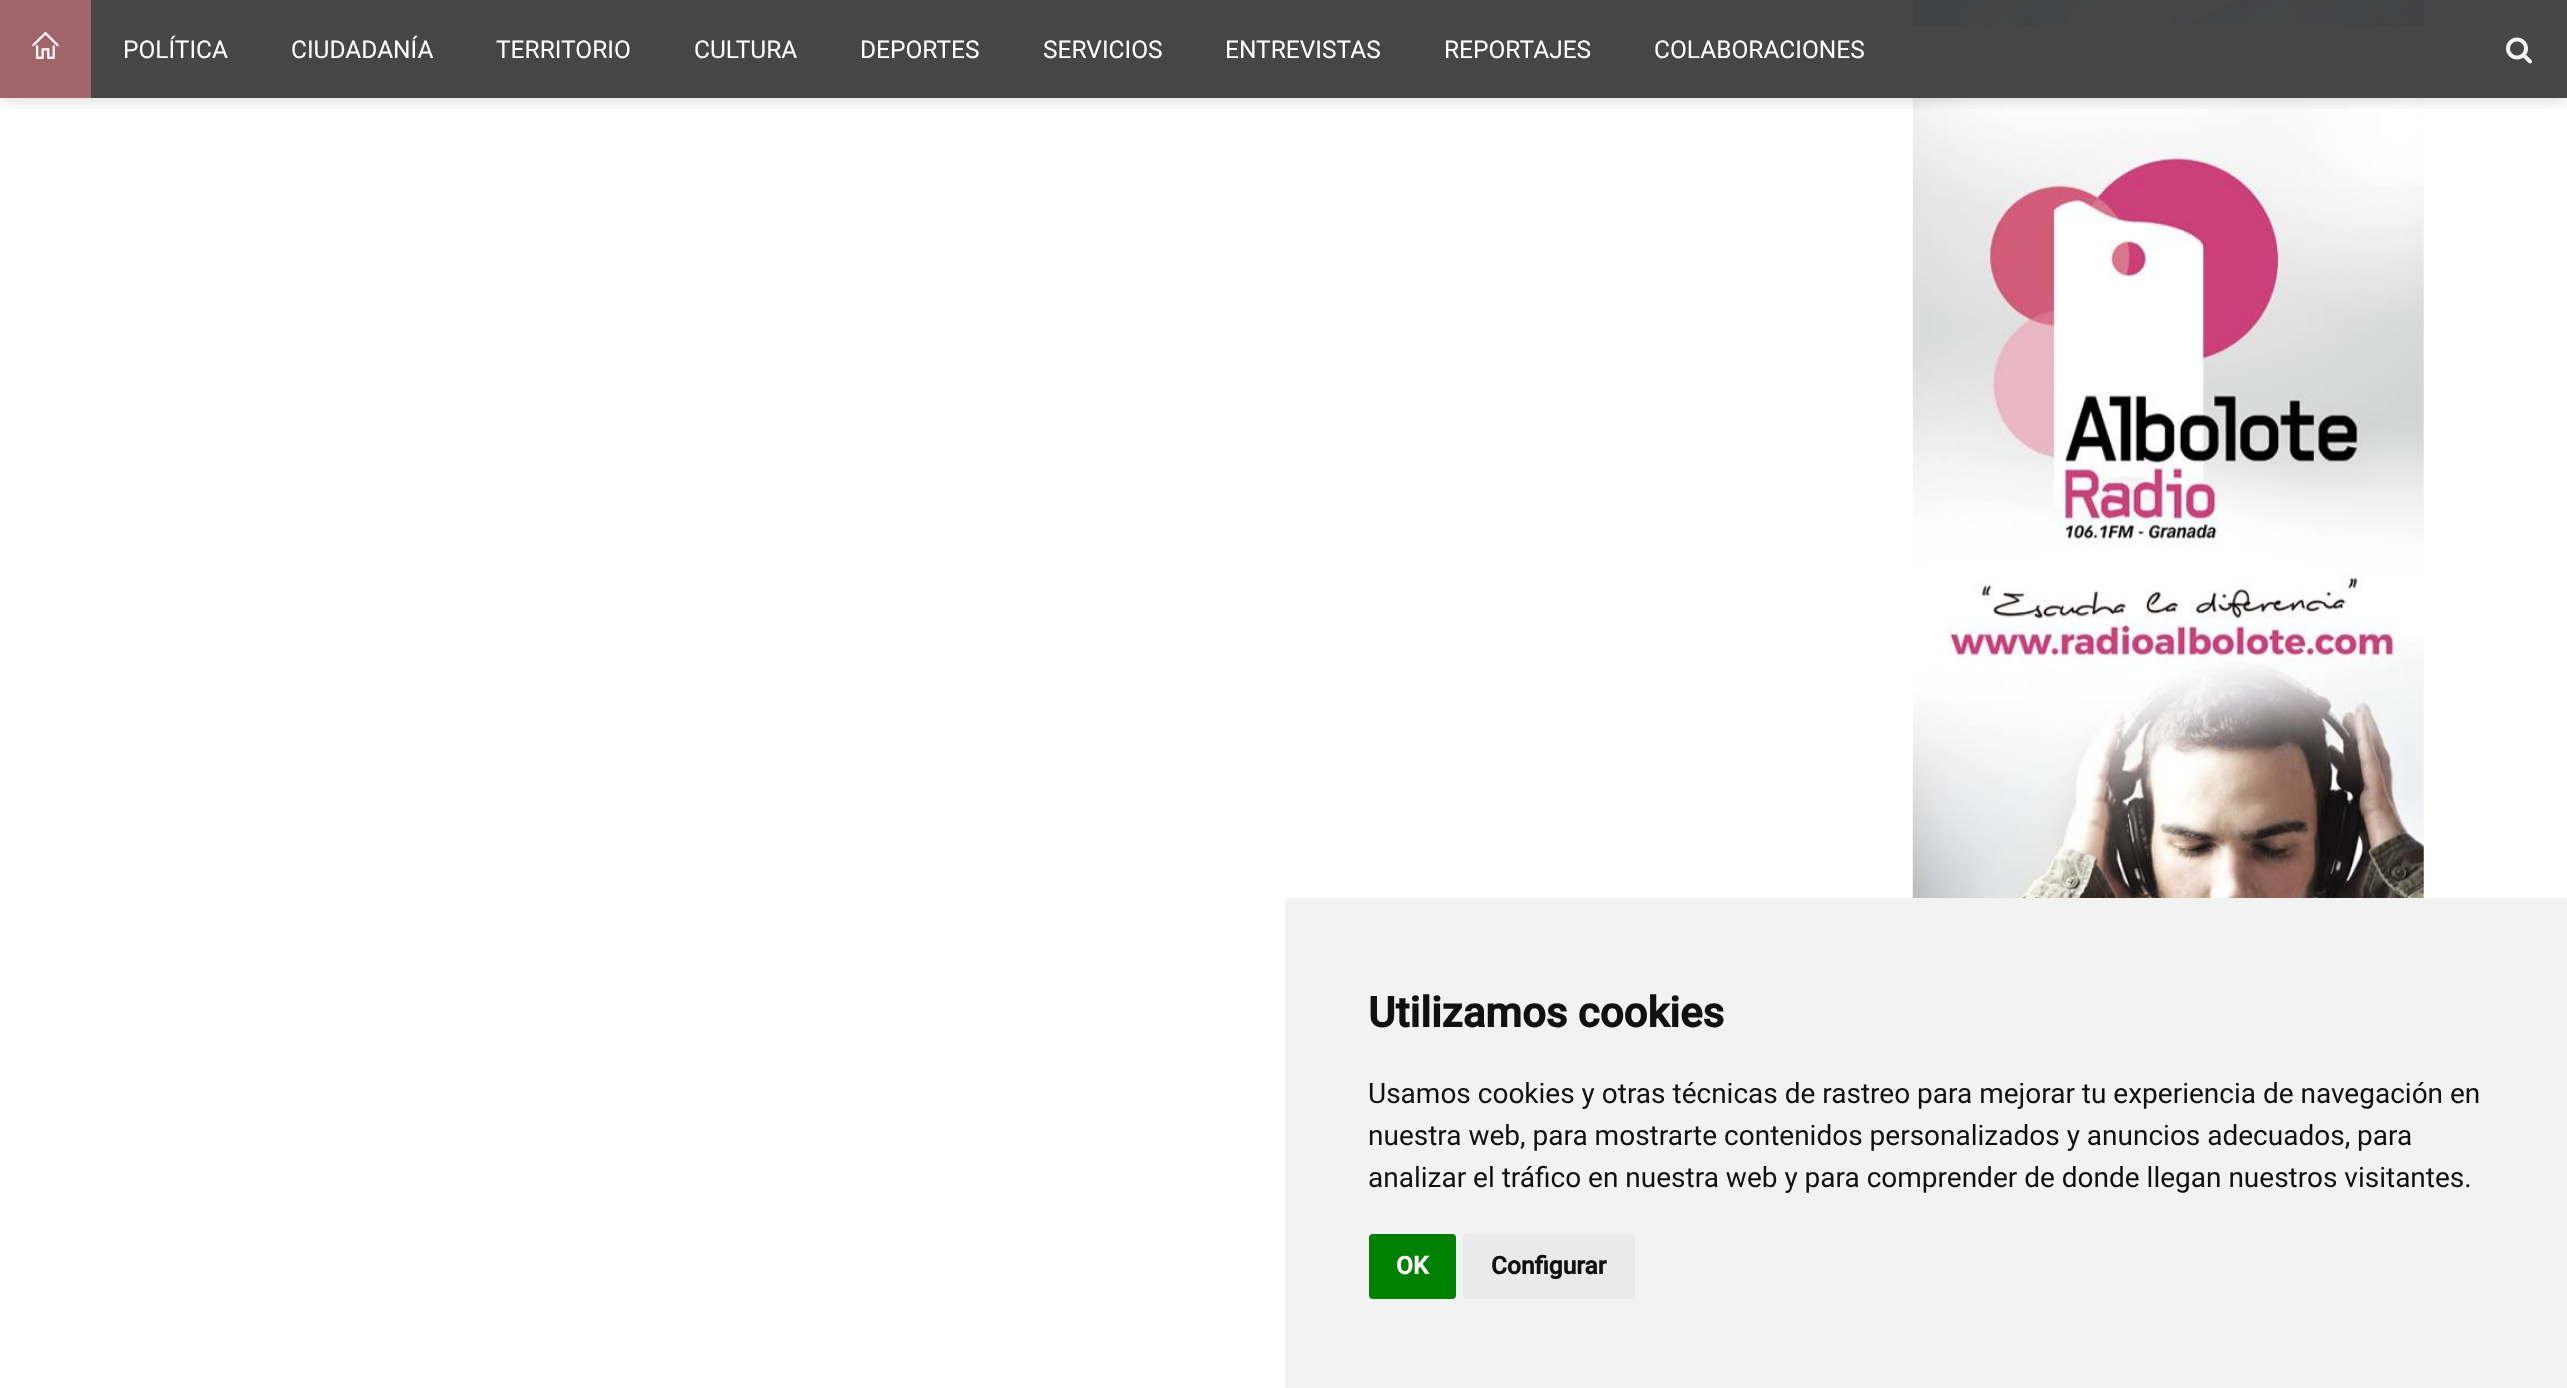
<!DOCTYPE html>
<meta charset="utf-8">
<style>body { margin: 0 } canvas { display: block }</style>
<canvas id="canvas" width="2567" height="1388"></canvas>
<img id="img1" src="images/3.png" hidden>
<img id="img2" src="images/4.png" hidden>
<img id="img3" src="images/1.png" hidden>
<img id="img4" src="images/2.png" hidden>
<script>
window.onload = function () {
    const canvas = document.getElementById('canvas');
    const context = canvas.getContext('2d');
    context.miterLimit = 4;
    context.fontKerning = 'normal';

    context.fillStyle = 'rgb(255, 255, 255)';
    context.fillRect(0, 0, 2567, 1388);
    context.drawImage(document.getElementById('img1'), 1912, 0, 512, 27);
    context.drawImage(document.getElementById('img2'), 1912, 61, 512, 837);
    context.save();
    context.beginPath();
    context.rect(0, 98, 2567, 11);
    context.clip();
    context.fillStyle = 'rgba(0, 0, 0, 0.19)';
    context.filter = 'blur(9px)';
    context.beginPath();
    context.rect(0, 0, 2567, 98);
    context.fill();
    context.filter = 'none';
    context.restore();
    context.fillStyle = 'rgba(58, 58, 58, 0.94)';
    context.fillRect(91, 0, 2476, 98);
    context.fillStyle = 'rgb(161, 100, 106)';
    context.fillRect(0, 0, 91, 98);
    context.drawImage(document.getElementById('img3'), 32, 32, 27, 27);
    context.drawImage(document.getElementById('img4'), 2506, 37, 26, 27);
    context.fillStyle = 'rgb(242, 242, 242)';
    context.fillRect(1285, 898, 1282, 490);
    context.fillStyle = 'rgb(0, 128, 0)';
    context.beginPath();
    context.roundRect(1369, 1234, 87, 65, 4);
    context.fill();
    context.fillStyle = 'rgb(234, 234, 234)';
    context.beginPath();
    context.roundRect(1463, 1234, 172, 65, 4);
    context.fill();
    context.font = '24.5px Roboto';
    context.fillStyle = 'rgb(255, 255, 255)';
    context.fillText('POLÍTICA', 123, 58);
    context.fillText('CIUDADANÍA', 291, 58);
    context.fillText('TERRITORIO', 496, 58);
    context.fillText('CULTURA', 694, 58);
    context.fillText('DEPORTES', 860, 58);
    context.fillText('SERVICIOS', 1043, 58);
    context.fillText('ENTREVISTAS', 1225, 58);
    context.fillText('REPORTAJES', 1444, 58);
    context.fillText('COLABORACIONES', 1654, 58);
    context.font = 'bold 42px Roboto';
    context.fillStyle = 'rgb(17, 17, 17)';
    context.fillText('Utilizamos cookies', 1368, 1027);
    context.font = '28px Roboto';
    context.fillText('Usamos cookies y otras técnicas de rastreo para mejorar tu experiencia de navegación en', 1368, 1103);
    context.fillText('nuestra web, para mostrarte contenidos personalizados y anuncios adecuados, para', 1368, 1145);
    context.fillText('analizar el tráfico en nuestra web y para comprender de donde llegan nuestros visitantes.', 1368, 1187);
    context.font = 'bold 24.5px Roboto';
    context.fillStyle = 'rgb(255, 255, 255)';
    context.fillText('OK', 1396, 1274);
    context.fillStyle = 'rgb(17, 17, 17)';
    context.fillText('Configurar', 1491, 1274);
};
</script>
